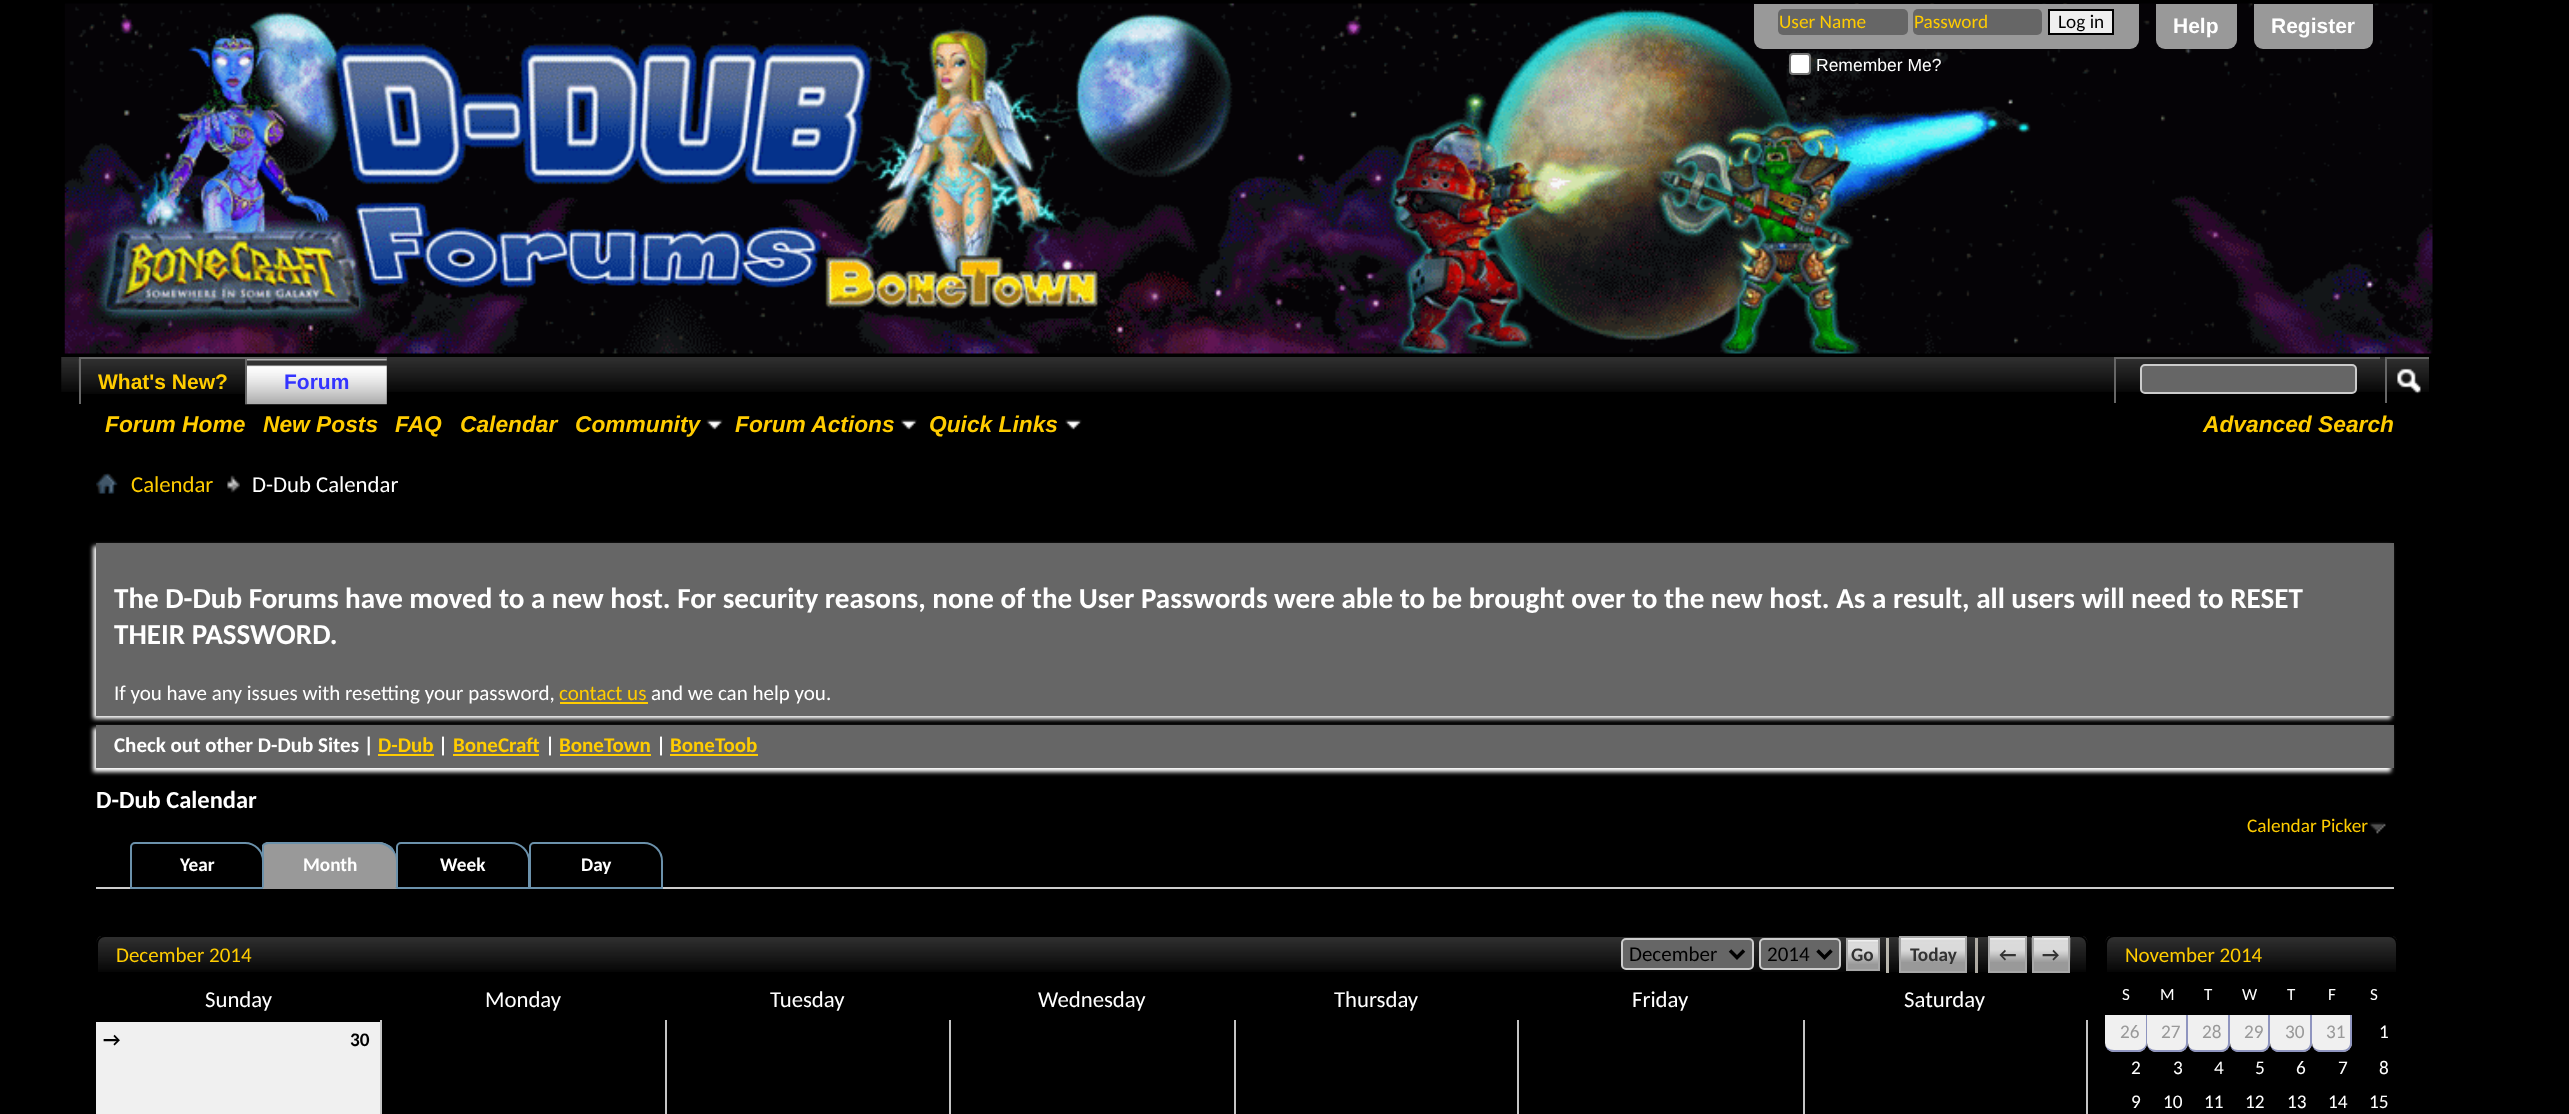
<!DOCTYPE html>
<meta charset="utf-8">
<style>body { margin: 0 } canvas { display: block }</style>
<canvas id="canvas" width="2569" height="1114"></canvas>
<img id="img1" src="images/1.png" hidden>
<img id="img2" src="images/2.png" hidden>
<img id="img3" src="images/3.png" hidden>
<img id="img4" src="images/4.png" hidden>
<img id="img5" src="images/5.png" hidden>
<img id="img6" src="images/6.png" hidden>
<img id="img7" src="images/7.png" hidden>
<img id="img8" src="images/8.png" hidden>
<img id="img9" src="images/9.png" hidden>
<img id="img10" src="images/10.png" hidden>
<img id="img11" src="images/11.png" hidden>
<img id="img12" src="images/12.png" hidden>
<img id="img13" src="images/13.png" hidden>
<img id="img14" src="images/14.png" hidden>
<img id="img15" src="images/15.png" hidden>
<img id="img16" src="images/16.png" hidden>
<img id="img17" src="images/17.png" hidden>
<script>
window.onload = function () {
    const canvas = document.getElementById('canvas');
    const context = canvas.getContext('2d');
    context.miterLimit = 4;
    context.fontKerning = 'normal';

    context.fillStyle = 'rgb(0, 0, 0)';
    context.fillRect(0, 0, 2569, 1114);
    context.drawImage(document.getElementById('img1'), 64, 3, 2369, 351);
    context.fillStyle = 'rgb(153, 153, 153)';
    context.beginPath();
    context.roundRect(1754, 4, 385, 45, [0, 0, 9, 9]);
    context.fill();
    context.fillStyle = 'rgb(102, 102, 102)';
    context.beginPath();
    context.roundRect(1778, 9, 130, 26, 5);
    context.fill();
    context.beginPath();
    context.roundRect(1913, 9, 129, 26, 5);
    context.fill();
    context.fillStyle = 'rgb(239, 239, 239)';
    context.beginPath();
    context.rect(2049, 10, 64, 24);
    context.fill();
    context.strokeStyle = 'rgb(0, 0, 0)';
    context.lineWidth = 2;
    context.stroke();
    context.fillStyle = 'rgb(255, 255, 255)';
    context.beginPath();
    context.roundRect(1790, 54, 20, 20, 3);
    context.fill();
    context.strokeStyle = 'rgb(118, 118, 118)';
    context.stroke();
    context.fillStyle = 'rgb(153, 153, 153)';
    context.beginPath();
    context.roundRect(2156, 4, 81, 45, [0, 0, 9, 9]);
    context.fill();
    context.beginPath();
    context.roundRect(2254, 4, 119, 45, [0, 0, 9, 9]);
    context.fill();
    context.drawImage(document.getElementById('img2'), 61, 357, 2368, 35);
    context.fillStyle = 'rgb(0, 0, 0)';
    context.fillRect(81, 359, 164, 33);
    context.drawImage(document.getElementById('img3'), 78, 359, 167, 35);
    context.fillStyle = 'rgb(102, 102, 102)';
    context.fillRect(79, 357, 308, 2);
    context.fillRect(79, 357, 2, 47);
    context.fillStyle = 'rgb(51, 51, 51)';
    context.fillRect(247, 359, 140, 45);
    context.drawImage(document.getElementById('img4'), 245, 359, 142, 46);
    context.fillStyle = 'rgb(102, 102, 102)';
    context.fillRect(245, 357, 2, 47);
    context.drawImage(document.getElementById('img5'), 706, 419, 17, 11);
    context.drawImage(document.getElementById('img6'), 901, 419, 16, 11);
    context.drawImage(document.getElementById('img7'), 1065, 419, 17, 11);
    context.fillRect(2114, 357, 266, 2);
    context.fillRect(2114, 357, 2, 46);
    context.beginPath();
    context.roundRect(2141, 365, 215, 28, 4);
    context.fill();
    context.strokeStyle = 'rgb(204, 204, 204)';
    context.stroke();
    context.fillRect(2385, 357, 44, 2);
    context.fillRect(2385, 357, 2, 46);
    context.drawImage(document.getElementById('img8'), 2397, 368, 24, 26);
    context.drawImage(document.getElementById('img9'), 96, 473, 22, 21);
    context.drawImage(document.getElementById('img10'), 227, 475, 13, 18);
    context.fillStyle = 'rgb(255, 255, 255)';
    context.filter = 'blur(2px)';
    context.beginPath();
    context.rect(93, 546, 2298, 173);
    context.fill();
    context.filter = 'none';
    context.fillStyle = 'rgb(102, 102, 102)';
    context.fillRect(96, 543, 2298, 173);
    context.fillStyle = 'rgb(255, 204, 0)';
    context.fillRect(560, 702, 88, 2);
    context.fillStyle = 'rgb(255, 255, 255)';
    context.filter = 'blur(2px)';
    context.beginPath();
    context.rect(93, 728, 2298, 44);
    context.fill();
    context.filter = 'none';
    context.fillStyle = 'rgb(102, 102, 102)';
    context.fillRect(96, 725, 2298, 43);
    context.fillStyle = 'rgb(255, 204, 0)';
    context.fillRect(378, 754, 56, 2);
    context.fillRect(453, 754, 86, 2);
    context.fillRect(560, 754, 91, 2);
    context.fillRect(670, 754, 88, 2);
    context.drawImage(document.getElementById('img11'), 2369, 822, 17, 12);
    context.fillStyle = 'rgb(204, 204, 204)';
    context.fillRect(96, 887, 2298, 2);
    context.beginPath();
    context.roundRect(131, 843, 132, 45, [4, 18, 0, 0]);
    context.strokeStyle = 'rgb(107, 145, 171)';
    context.stroke();
    context.beginPath();
    context.roundRect(397, 843, 132, 45, [4, 18, 0, 0]);
    context.stroke();
    context.fillStyle = 'rgb(153, 153, 153)';
    context.beginPath();
    context.roundRect(263, 842, 134, 47, [5, 19, 0, 0]);
    context.fill();
    context.fillStyle = 'rgb(107, 145, 171)';
    context.beginPath();
    context.moveTo(268, 842);
    context.lineTo(264, 843);
    context.lineTo(265, 845);
    context.lineTo(268, 844);
    context.lineTo(378, 844);
    context.bezierCurveTo(383, 844, 387, 846, 390, 849);
    context.lineTo(392, 847);
    context.bezierCurveTo(388, 844, 384, 842, 378, 842);
    context.closePath();
    context.fill();
    context.beginPath();
    context.moveTo(397, 889);
    context.lineTo(397, 861);
    context.bezierCurveTo(397, 856, 395, 851, 392, 847);
    context.lineTo(390, 849);
    context.bezierCurveTo(394, 852, 396, 856, 396, 861);
    context.lineTo(396, 887);
    context.lineTo(395, 887);
    context.closePath();
    context.fill();
    context.beginPath();
    context.moveTo(262, 889);
    context.lineTo(264, 887);
    context.lineTo(264, 846);
    context.lineTo(265, 845);
    context.lineTo(264, 843);
    context.lineTo(262, 845);
    context.closePath();
    context.fill();
    context.beginPath();
    context.roundRect(530, 843, 132, 45, [4, 18, 0, 0]);
    context.stroke();
    context.drawImage(document.getElementById('img12'), 96, 936, 1992, 36);
    context.beginPath();
    context.roundRect(97, 936, 1990, 40, [8, 8, 0, 0]);
    context.strokeStyle = 'rgb(0, 0, 0)';
    context.stroke();
    context.fillStyle = 'rgb(102, 102, 102)';
    context.beginPath();
    context.roundRect(1622, 939, 131, 30, 4);
    context.fill();
    context.strokeStyle = 'rgb(204, 204, 204)';
    context.stroke();
    context.beginPath();
    context.moveTo(1730, 950.5);
    context.lineTo(1737, 957.5);
    context.lineTo(1744, 950.5);
    context.strokeStyle = 'rgb(0, 0, 0)';
    context.lineWidth = 3.5;
    context.stroke();
    context.beginPath();
    context.roundRect(1760, 939, 80, 30, 4);
    context.fill();
    context.strokeStyle = 'rgb(204, 204, 204)';
    context.lineWidth = 2;
    context.stroke();
    context.beginPath();
    context.moveTo(1817.5, 950.5);
    context.lineTo(1824.5, 957.5);
    context.lineTo(1831.5, 950.5);
    context.strokeStyle = 'rgb(0, 0, 0)';
    context.lineWidth = 3.5;
    context.stroke();
    context.fillStyle = 'rgba(196, 193, 184, 0.94)';
    context.fillRect(1886, 938, 3, 35);
    context.fillStyle = 'rgb(153, 153, 153)';
    context.fillRect(1901, 938, 64, 33);
    context.drawImage(document.getElementById('img13'), 1898, 938, 67, 24);
    context.fillStyle = 'rgba(197, 193, 184, 0.87)';
    context.fillRect(1975, 938, 3, 35);
    context.fillStyle = 'rgb(153, 153, 153)';
    context.fillRect(1990, 938, 35, 33);
    context.drawImage(document.getElementById('img14'), 1990, 938, 35, 24);
    context.fillRect(2034, 938, 34, 33);
    context.drawImage(document.getElementById('img15'), 2031, 938, 40, 24);
    context.fillRect(1848, 940, 30, 29);
    context.drawImage(document.getElementById('img16'), 1848, 940, 30, 24);
    context.strokeStyle = 'rgb(168, 168, 168)';
    context.lineWidth = 2;
    context.strokeRect(1847, 939, 32, 31);
    context.strokeRect(1900, 937, 66, 35);
    context.strokeRect(1989, 937, 37, 35);
    context.strokeRect(2033, 937, 36, 35);
    context.fillStyle = 'rgb(240, 240, 240)';
    context.fillRect(96, 1022, 284, 92);
    context.fillStyle = 'rgb(196, 196, 196)';
    context.fillRect(380, 1020, 2, 94);
    context.fillRect(665, 1020, 2, 94);
    context.fillRect(949, 1020, 2, 94);
    context.fillRect(1234, 1020, 2, 94);
    context.fillRect(1517, 1020, 2, 94);
    context.fillRect(1803, 1020, 2, 94);
    context.fillRect(2086, 1020, 2, 94);
    context.drawImage(document.getElementById('img17'), 2105, 936, 293, 36);
    context.beginPath();
    context.roundRect(2106, 936, 291, 40, [8, 8, 0, 0]);
    context.strokeStyle = 'rgb(0, 0, 0)';
    context.stroke();
    context.fillStyle = 'rgb(240, 240, 240)';
    context.beginPath();
    context.roundRect(2105, 1015, 42, 37, [0, 0, 9, 9]);
    context.fill();
    context.fillStyle = 'rgb(143, 149, 191)';
    context.beginPath();
    context.moveTo(2105, 1015);
    context.lineTo(2147, 1015);
    context.lineTo(2147, 1043);
    context.bezierCurveTo(2147, 1048, 2143, 1052, 2138, 1052);
    context.lineTo(2114, 1052);
    context.bezierCurveTo(2109, 1052, 2105, 1048, 2105, 1043);
    context.closePath();
    context.moveTo(2105, 1015);
    context.lineTo(2146, 1015);
    context.lineTo(2146, 1043);
    context.bezierCurveTo(2146, 1047, 2142, 1050, 2138, 1050);
    context.lineTo(2114, 1050);
    context.bezierCurveTo(2109, 1050, 2105, 1047, 2105, 1043);
    context.closePath();
    context.fill('evenodd');
    context.fillStyle = 'rgb(240, 240, 240)';
    context.beginPath();
    context.roundRect(2147, 1015, 41, 37, [0, 0, 9, 9]);
    context.fill();
    context.fillStyle = 'rgb(143, 149, 191)';
    context.beginPath();
    context.moveTo(2147, 1015);
    context.lineTo(2188, 1015);
    context.lineTo(2188, 1043);
    context.bezierCurveTo(2188, 1048, 2184, 1052, 2179, 1052);
    context.lineTo(2156, 1052);
    context.bezierCurveTo(2151, 1052, 2147, 1048, 2147, 1043);
    context.closePath();
    context.moveTo(2147, 1015);
    context.lineTo(2186, 1015);
    context.lineTo(2186, 1043);
    context.bezierCurveTo(2186, 1047, 2183, 1050, 2179, 1050);
    context.lineTo(2156, 1050);
    context.bezierCurveTo(2151, 1050, 2147, 1047, 2147, 1043);
    context.closePath();
    context.fill('evenodd');
    context.fillStyle = 'rgb(240, 240, 240)';
    context.beginPath();
    context.roundRect(2188, 1015, 42, 37, [0, 0, 9, 9]);
    context.fill();
    context.fillStyle = 'rgb(143, 149, 191)';
    context.beginPath();
    context.moveTo(2188, 1015);
    context.lineTo(2230, 1015);
    context.lineTo(2230, 1043);
    context.bezierCurveTo(2230, 1048, 2226, 1052, 2221, 1052);
    context.lineTo(2196, 1052);
    context.bezierCurveTo(2191, 1052, 2188, 1048, 2188, 1043);
    context.closePath();
    context.moveTo(2188, 1015);
    context.lineTo(2228, 1015);
    context.lineTo(2228, 1043);
    context.bezierCurveTo(2228, 1047, 2225, 1050, 2221, 1050);
    context.lineTo(2196, 1050);
    context.bezierCurveTo(2191, 1050, 2188, 1047, 2188, 1043);
    context.closePath();
    context.fill('evenodd');
    context.fillStyle = 'rgb(240, 240, 240)';
    context.beginPath();
    context.roundRect(2230, 1015, 40, 37, [0, 0, 9, 9]);
    context.fill();
    context.fillStyle = 'rgb(143, 149, 191)';
    context.beginPath();
    context.moveTo(2230, 1015);
    context.lineTo(2270, 1015);
    context.lineTo(2270, 1043);
    context.bezierCurveTo(2270, 1048, 2266, 1052, 2261, 1052);
    context.lineTo(2238, 1052);
    context.bezierCurveTo(2233, 1052, 2230, 1048, 2230, 1043);
    context.closePath();
    context.moveTo(2230, 1015);
    context.lineTo(2268, 1015);
    context.lineTo(2268, 1043);
    context.bezierCurveTo(2268, 1047, 2265, 1050, 2261, 1050);
    context.lineTo(2238, 1050);
    context.bezierCurveTo(2233, 1050, 2230, 1047, 2230, 1043);
    context.closePath();
    context.fill('evenodd');
    context.fillStyle = 'rgb(240, 240, 240)';
    context.beginPath();
    context.roundRect(2270, 1015, 42, 37, [0, 0, 9, 9]);
    context.fill();
    context.fillStyle = 'rgb(143, 149, 191)';
    context.beginPath();
    context.moveTo(2270, 1015);
    context.lineTo(2312, 1015);
    context.lineTo(2312, 1043);
    context.bezierCurveTo(2312, 1048, 2308, 1052, 2303, 1052);
    context.lineTo(2278, 1052);
    context.bezierCurveTo(2274, 1052, 2270, 1048, 2270, 1043);
    context.closePath();
    context.moveTo(2270, 1015);
    context.lineTo(2310, 1015);
    context.lineTo(2310, 1043);
    context.bezierCurveTo(2310, 1047, 2307, 1050, 2303, 1050);
    context.lineTo(2278, 1050);
    context.bezierCurveTo(2274, 1050, 2270, 1047, 2270, 1043);
    context.closePath();
    context.fill('evenodd');
    context.fillStyle = 'rgb(240, 240, 240)';
    context.beginPath();
    context.roundRect(2312, 1015, 40, 37, [0, 0, 9, 9]);
    context.fill();
    context.fillStyle = 'rgb(143, 149, 191)';
    context.beginPath();
    context.moveTo(2312, 1015);
    context.lineTo(2352, 1015);
    context.lineTo(2352, 1043);
    context.bezierCurveTo(2352, 1048, 2348, 1052, 2343, 1052);
    context.lineTo(2320, 1052);
    context.bezierCurveTo(2316, 1052, 2312, 1048, 2312, 1043);
    context.closePath();
    context.moveTo(2312, 1015);
    context.lineTo(2350, 1015);
    context.lineTo(2350, 1043);
    context.bezierCurveTo(2350, 1047, 2347, 1050, 2343, 1050);
    context.lineTo(2320, 1050);
    context.bezierCurveTo(2316, 1050, 2312, 1047, 2312, 1043);
    context.closePath();
    context.fill('evenodd');
    context.font = '19.25px Carlito';
    context.fillStyle = 'rgb(255, 204, 0)';
    context.fillText('User Name', 1779, 28);
    context.fillText('Password', 1914, 28);
    context.fillStyle = 'rgb(0, 0, 0)';
    context.fillText('Log in', 2058, 28);
    context.font = '17.5px Liberation Sans';
    context.fillStyle = 'rgb(255, 255, 255)';
    context.fillText('Remember Me?', 1816, 71);
    context.font = 'bold 21px Liberation Sans';
    context.fillText('Help', 2173, 33);
    context.fillText('Register', 2271, 33);
    context.fillStyle = 'rgb(255, 204, 0)';
    context.fillText('What\'s New?', 98, 389);
    context.fillStyle = 'rgb(51, 51, 255)';
    context.fillText('Forum', 284, 389);
    context.font = 'italic bold 22.75px Liberation Sans';
    context.fillStyle = 'rgb(255, 204, 0)';
    context.fillText('Forum Home', 105, 432);
    context.fillText('New Posts', 263, 432);
    context.fillText('FAQ', 395, 432);
    context.fillText('Calendar', 460, 432);
    context.fillText('Community', 575, 432);
    context.fillText('Forum Actions', 735, 432);
    context.fillText('Quick Links', 929, 432);
    context.fillText('Advanced Search', 2203, 432);
    context.font = '22.75px Carlito';
    context.fillText('Calendar', 131, 492);
    context.fillStyle = 'rgb(255, 255, 255)';
    context.fillText('D-Dub Calendar', 252, 492);
    context.font = 'bold 29.1px Carlito';
    context.fillText('The D-Dub Forums have moved to a new host. For security reasons, none of the User Passwords were able to be brought over to the new host. As a result, all users will need to RESET', 114, 608);
    context.fillText('THEIR PASSWORD.', 114, 644);
    context.font = '21px Carlito';
    context.fillText('If you have any issues with resetting your password,', 114, 700);
    context.fillStyle = 'rgb(255, 204, 0)';
    context.fillText('contact us', 559, 700);
    context.fillStyle = 'rgb(255, 255, 255)';
    context.fillText('and we can help you.', 651, 700);
    context.font = 'bold 21px Carlito';
    context.fillText('Check out other D-Dub Sites |', 114, 752);
    context.fillStyle = 'rgb(255, 204, 0)';
    context.fillText('D-Dub', 378, 752);
    context.fillStyle = 'rgb(255, 255, 255)';
    context.fillText('|', 438, 752);
    context.fillStyle = 'rgb(255, 204, 0)';
    context.fillText('BoneCraft', 453, 752);
    context.fillStyle = 'rgb(255, 255, 255)';
    context.fillText('|', 545, 752);
    context.fillStyle = 'rgb(255, 204, 0)';
    context.fillText('BoneTown', 559, 752);
    context.fillStyle = 'rgb(255, 255, 255)';
    context.fillText('|', 656, 752);
    context.fillStyle = 'rgb(255, 204, 0)';
    context.fillText('BoneToob', 670, 752);
    context.font = 'bold 24.5px Carlito';
    context.fillStyle = 'rgb(255, 255, 255)';
    context.fillText('D-Dub Calendar', 96, 808);
    context.font = '19.25px Carlito';
    context.fillStyle = 'rgb(255, 204, 0)';
    context.fillText('Calendar Picker', 2247, 832);
    context.font = 'bold 19.25px Carlito';
    context.fillStyle = 'rgb(255, 255, 255)';
    context.fillText('Year', 180, 871);
    context.fillText('Month', 303, 871);
    context.fillText('Week', 440, 871);
    context.fillText('Day', 581, 871);
    context.font = '21px Carlito';
    context.fillStyle = 'rgb(255, 204, 0)';
    context.fillText('December 2014', 116, 962);
    context.fillStyle = 'rgb(0, 0, 0)';
    context.fillText('December', 1629, 961);
    context.fillText('2014', 1767, 961);
    context.font = 'bold 19.25px Carlito';
    context.fillStyle = 'rgb(51, 51, 51)';
    context.fillText('Go', 1851, 961);
    context.fillText('Today', 1910, 961);
    context.fillText('←', 1999, 961);
    context.fillText('→', 2042, 961);
    context.font = '22.75px Carlito';
    context.fillStyle = 'rgb(255, 255, 255)';
    context.fillText('Sunday', 205, 1007);
    context.fillText('Monday', 485, 1007);
    context.fillText('Tuesday', 770, 1007);
    context.fillText('Wednesday', 1038, 1007);
    context.fillText('Thursday', 1334, 1007);
    context.fillText('Friday', 1632, 1007);
    context.fillText('Saturday', 1904, 1007);
    context.font = 'bold 19.25px Carlito';
    context.fillStyle = 'rgb(0, 0, 0)';
    context.fillText('→', 103, 1046);
    context.fillText('30', 350, 1046);
    context.font = '21px Carlito';
    context.fillStyle = 'rgb(255, 204, 0)';
    context.fillText('November 2014', 2125, 962);
    context.font = '17px Carlito';
    context.fillStyle = 'rgb(255, 255, 255)';
    context.fillText('S', 2122, 1000);
    context.fillText('M', 2160, 1000);
    context.fillText('T', 2204, 1000);
    context.fillText('W', 2242, 1000);
    context.fillText('T', 2287, 1000);
    context.fillText('F', 2328, 1000);
    context.fillText('S', 2370, 1000);
    context.font = '19.25px Carlito';
    context.fillStyle = 'rgb(153, 153, 153)';
    context.fillText('26', 2120, 1038);
    context.fillText('27', 2161, 1038);
    context.fillText('28', 2202, 1038);
    context.fillText('29', 2244, 1038);
    context.fillText('30', 2285, 1038);
    context.fillText('31', 2326, 1038);
    context.fillStyle = 'rgb(255, 255, 255)';
    context.fillText('1', 2379, 1038);
    context.fillText('2', 2131, 1074);
    context.fillText('3', 2173, 1074);
    context.fillText('4', 2214, 1074);
    context.fillText('5', 2255, 1074);
    context.fillText('6', 2296, 1074);
    context.fillText('7', 2338, 1074);
    context.fillText('8', 2379, 1074);
    context.fillText('9', 2131, 1108);
    context.fillText('10', 2163, 1108);
    context.fillText('11', 2204, 1108);
    context.fillText('12', 2245, 1108);
    context.fillText('13', 2287, 1108);
    context.fillText('14', 2328, 1108);
    context.fillText('15', 2369, 1108);
};
</script>
